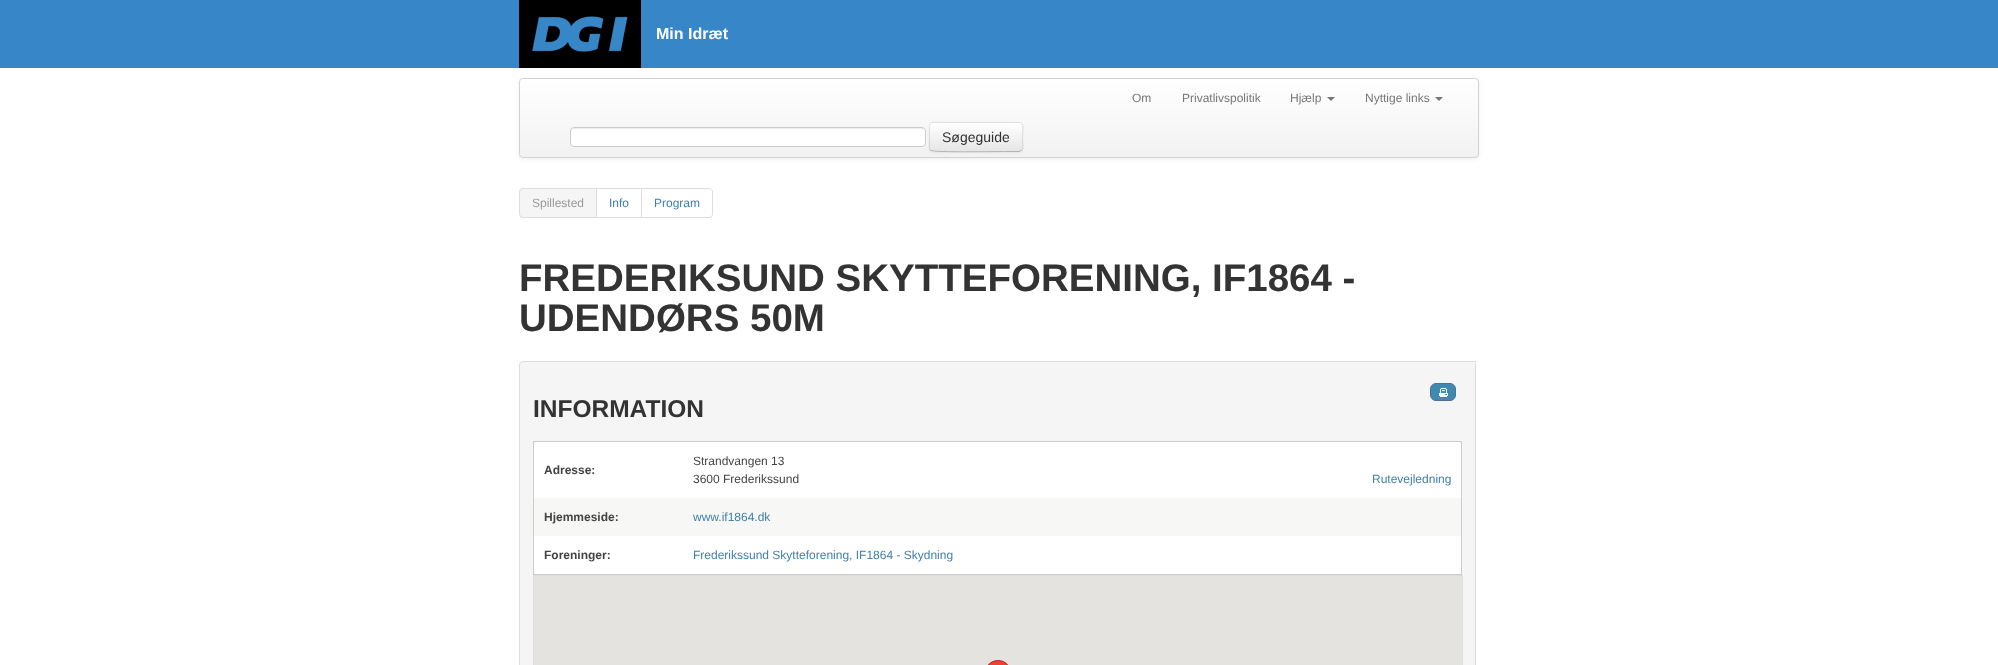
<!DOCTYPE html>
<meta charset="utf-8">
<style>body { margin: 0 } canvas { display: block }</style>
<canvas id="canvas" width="1998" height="665"></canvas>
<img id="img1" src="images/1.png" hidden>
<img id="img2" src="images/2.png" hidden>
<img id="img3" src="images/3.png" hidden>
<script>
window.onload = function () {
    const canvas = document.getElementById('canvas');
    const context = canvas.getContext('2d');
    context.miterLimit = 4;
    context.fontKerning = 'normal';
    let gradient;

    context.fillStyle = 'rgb(255, 255, 255)';
    context.fillRect(0, 0, 1998, 665);
    context.fillStyle = 'rgb(55, 135, 200)';
    context.fillRect(0, 0, 1998, 68);
    context.drawImage(document.getElementById('img1'), 519, 0, 122, 68);
    context.fillStyle = 'rgba(0, 0, 0, 0.07)';
    context.filter = 'blur(2px)';
    context.beginPath();
    context.roundRect(519, 79, 960, 80, 4);
    context.fill();
    context.filter = 'none';
    context.save();
    context.beginPath();
    context.roundRect(519, 78, 960, 80, 4);
    context.clip();
    gradient = context.createLinearGradient(999, 79, 999, 157);
    gradient.addColorStop(0, 'rgb(255, 255, 255)');
    gradient.addColorStop(1, 'rgb(242, 242, 242)');
    context.fillStyle = gradient;
    context.fillRect(519, 79, 960, 78);
    context.restore();
    context.beginPath();
    context.roundRect(519.5, 78.5, 959, 79, 3.5);
    context.strokeStyle = 'rgb(212, 212, 212)';
    context.stroke();
    context.fillStyle = 'rgb(119, 119, 119)';
    context.beginPath();
    context.moveTo(1327, 97);
    context.lineTo(1335, 97);
    context.lineTo(1331, 101);
    context.closePath();
    context.fill();
    context.beginPath();
    context.moveTo(1435, 97);
    context.lineTo(1443, 97);
    context.lineTo(1439, 101);
    context.closePath();
    context.fill();
    context.fillStyle = 'rgb(255, 255, 255)';
    context.beginPath();
    context.roundRect(570, 127, 356, 20, 4);
    context.fill();
    context.fillStyle = 'rgb(236, 236, 236)';
    context.beginPath();
    context.moveTo(574, 129);
    context.lineTo(922, 129);
    context.bezierCurveTo(924, 129, 925, 130, 925, 132);
    context.bezierCurveTo(925, 130, 924, 128, 922, 128);
    context.lineTo(574, 128);
    context.lineTo(572, 129);
    context.lineTo(571, 132);
    context.bezierCurveTo(571, 130, 572, 129, 574, 129);
    context.closePath();
    context.fill();
    context.beginPath();
    context.roundRect(570.5, 127.5, 355, 19, 3.5);
    context.strokeStyle = 'rgb(204, 204, 204)';
    context.stroke();
    context.fillStyle = 'rgba(0, 0, 0, 0.05)';
    context.filter = 'blur(1px)';
    context.beginPath();
    context.roundRect(929, 123, 94, 30, 4);
    context.fill();
    context.filter = 'none';
    context.fillStyle = 'rgb(245, 245, 245)';
    context.beginPath();
    context.roundRect(929, 122, 94, 30, 4);
    context.fill();
    context.save();
    context.beginPath();
    context.roundRect(929, 122, 94, 30, 4);
    context.clip();
    gradient = context.createLinearGradient(976, 123, 976, 151);
    gradient.addColorStop(0, 'rgb(255, 255, 255)');
    gradient.addColorStop(1, 'rgb(230, 230, 230)');
    context.fillStyle = gradient;
    context.fillRect(929, 123, 94, 28);
    context.restore();
    context.beginPath();
    context.moveTo(1021.5, 150.5);
    context.lineTo(1019, 151.5);
    context.lineTo(1004.5, 151.5);
    context.bezierCurveTo(996.5, 151.5, 933, 152.5, 931, 150.5);
    context.lineTo(930.5, 150.5);
    context.strokeStyle = 'rgb(179, 179, 179)';
    context.stroke();
    context.beginPath();
    context.moveTo(930.5, 150.5);
    context.bezierCurveTo(928.5, 148.5, 929.5, 140, 929.5, 137);
    context.bezierCurveTo(929.5, 119, 927.5, 122.5, 947.5, 122.5);
    context.lineTo(1004.5, 122.5);
    context.bezierCurveTo(1026.5, 122.5, 1022.5, 119.5, 1022.5, 140.5);
    context.bezierCurveTo(1022.5, 143.5, 1024, 148, 1021.5, 150.5);
    context.strokeStyle = 'rgba(0, 0, 0, 0.1)';
    context.stroke();
    context.beginPath();
    context.roundRect(519.5, 188.5, 77, 29, [3.5, 0, 0, 3.5]);
    context.fill();
    context.strokeStyle = 'rgb(221, 221, 221)';
    context.stroke();
    context.fillStyle = 'rgb(221, 221, 221)';
    context.fillRect(597, 188, 45, 1);
    context.fillRect(641, 188, 1, 30);
    context.fillRect(597, 217, 45, 1);
    context.beginPath();
    context.moveTo(642, 188);
    context.lineTo(709, 188);
    context.bezierCurveTo(711, 188, 713, 190, 713, 192);
    context.lineTo(713, 214);
    context.bezierCurveTo(713, 216, 711, 218, 709, 218);
    context.lineTo(642, 218);
    context.closePath();
    context.moveTo(642, 189);
    context.lineTo(709, 189);
    context.bezierCurveTo(711, 189, 712, 190, 712, 192);
    context.lineTo(712, 214);
    context.bezierCurveTo(712, 216, 711, 217, 709, 217);
    context.lineTo(642, 217);
    context.closePath();
    context.fill('evenodd');
    context.fillStyle = 'rgb(245, 245, 245)';
    context.beginPath();
    context.moveTo(523, 361.5);
    context.lineTo(1475.5, 361.5);
    context.lineTo(1475.5, 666);
    context.bezierCurveTo(1475.5, 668, 1474, 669.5, 1472, 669.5);
    context.lineTo(519.5, 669.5);
    context.lineTo(519.5, 365);
    context.bezierCurveTo(519.5, 363, 521, 361.5, 523, 361.5);
    context.closePath();
    context.fill();
    context.stroke();
    context.fillStyle = 'rgb(64, 137, 177)';
    context.beginPath();
    context.roundRect(1430.5, 383.5, 25, 17, 5.5);
    context.fill();
    context.strokeStyle = 'rgb(78, 111, 150)';
    context.stroke();
    context.drawImage(document.getElementById('img2'), 1439, 388, 9, 9);
    context.fillStyle = 'rgb(255, 255, 255)';
    context.beginPath();
    context.roundRect(533, 441, 929, 134, 6);
    context.fill();
    context.fillStyle = 'rgb(204, 204, 204)';
    context.fillRect(533, 441, 929, 1);
    context.fillRect(1461, 441, 1, 134);
    context.fillRect(533, 574, 929, 1);
    context.fillRect(533, 441, 1, 134);
    context.fillStyle = 'rgb(247, 247, 246)';
    context.fillRect(534, 498, 927, 38);
    context.strokeStyle = 'rgb(221, 221, 221)';
    context.strokeRect(533.5, 575.5, 929, 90);
    context.fillStyle = 'rgb(229, 227, 223)';
    context.fillRect(534, 576, 928, 89);
    context.drawImage(document.getElementById('img3'), 988, 660, 20, 5);
    context.font = 'bold 16px Liberation Sans';
    context.fillStyle = 'rgb(255, 255, 255)';
    context.fillText('Min Idræt', 656, 39);
    context.font = '12px Liberation Sans';
    context.fillStyle = 'rgb(119, 119, 119)';
    context.fillText('Om', 1132, 102);
    context.fillText('Privatlivspolitik', 1182, 102);
    context.fillText('Hjælp', 1290, 102);
    context.fillText('Nyttige links', 1365, 102);
    context.font = '14px Liberation Sans';
    context.fillStyle = 'rgb(51, 51, 51)';
    context.fillText('Søgeguide', 942, 142);
    context.font = '12px Liberation Sans';
    context.fillStyle = 'rgb(153, 153, 153)';
    context.fillText('Spillested', 532, 207);
    context.fillStyle = 'rgb(65, 129, 168)';
    context.fillText('Info', 609, 207);
    context.fillText('Program', 654, 207);
    context.font = 'bold 38.5px Liberation Sans';
    context.fillStyle = 'rgb(51, 51, 51)';
    context.fillText('FREDERIKSUND SKYTTEFORENING, IF1864 -', 519, 291);
    context.fillText('UDENDØRS 50M', 519, 331);
    context.font = 'bold 24.5px Liberation Sans';
    context.fillText('INFORMATION', 533, 417);
    context.font = 'bold 12px Liberation Sans';
    context.fillStyle = 'rgb(68, 68, 68)';
    context.fillText('Adresse:', 544, 474);
    context.font = '12px Liberation Sans';
    context.fillText('Strandvangen 13', 693, 465);
    context.fillText('3600 Frederikssund', 693, 483);
    context.fillStyle = 'rgb(65, 129, 168)';
    context.fillText('Rutevejledning', 1372, 483);
    context.font = 'bold 12px Liberation Sans';
    context.fillStyle = 'rgb(68, 68, 68)';
    context.fillText('Hjemmeside:', 544, 521);
    context.font = '12px Liberation Sans';
    context.fillStyle = 'rgb(65, 129, 168)';
    context.fillText('www.if1864.dk', 693, 521);
    context.font = 'bold 12px Liberation Sans';
    context.fillStyle = 'rgb(68, 68, 68)';
    context.fillText('Foreninger:', 544, 559);
    context.font = '12px Liberation Sans';
    context.fillStyle = 'rgb(65, 129, 168)';
    context.fillText('Frederikssund Skytteforening, IF1864 - Skydning', 693, 559);
};
</script>
